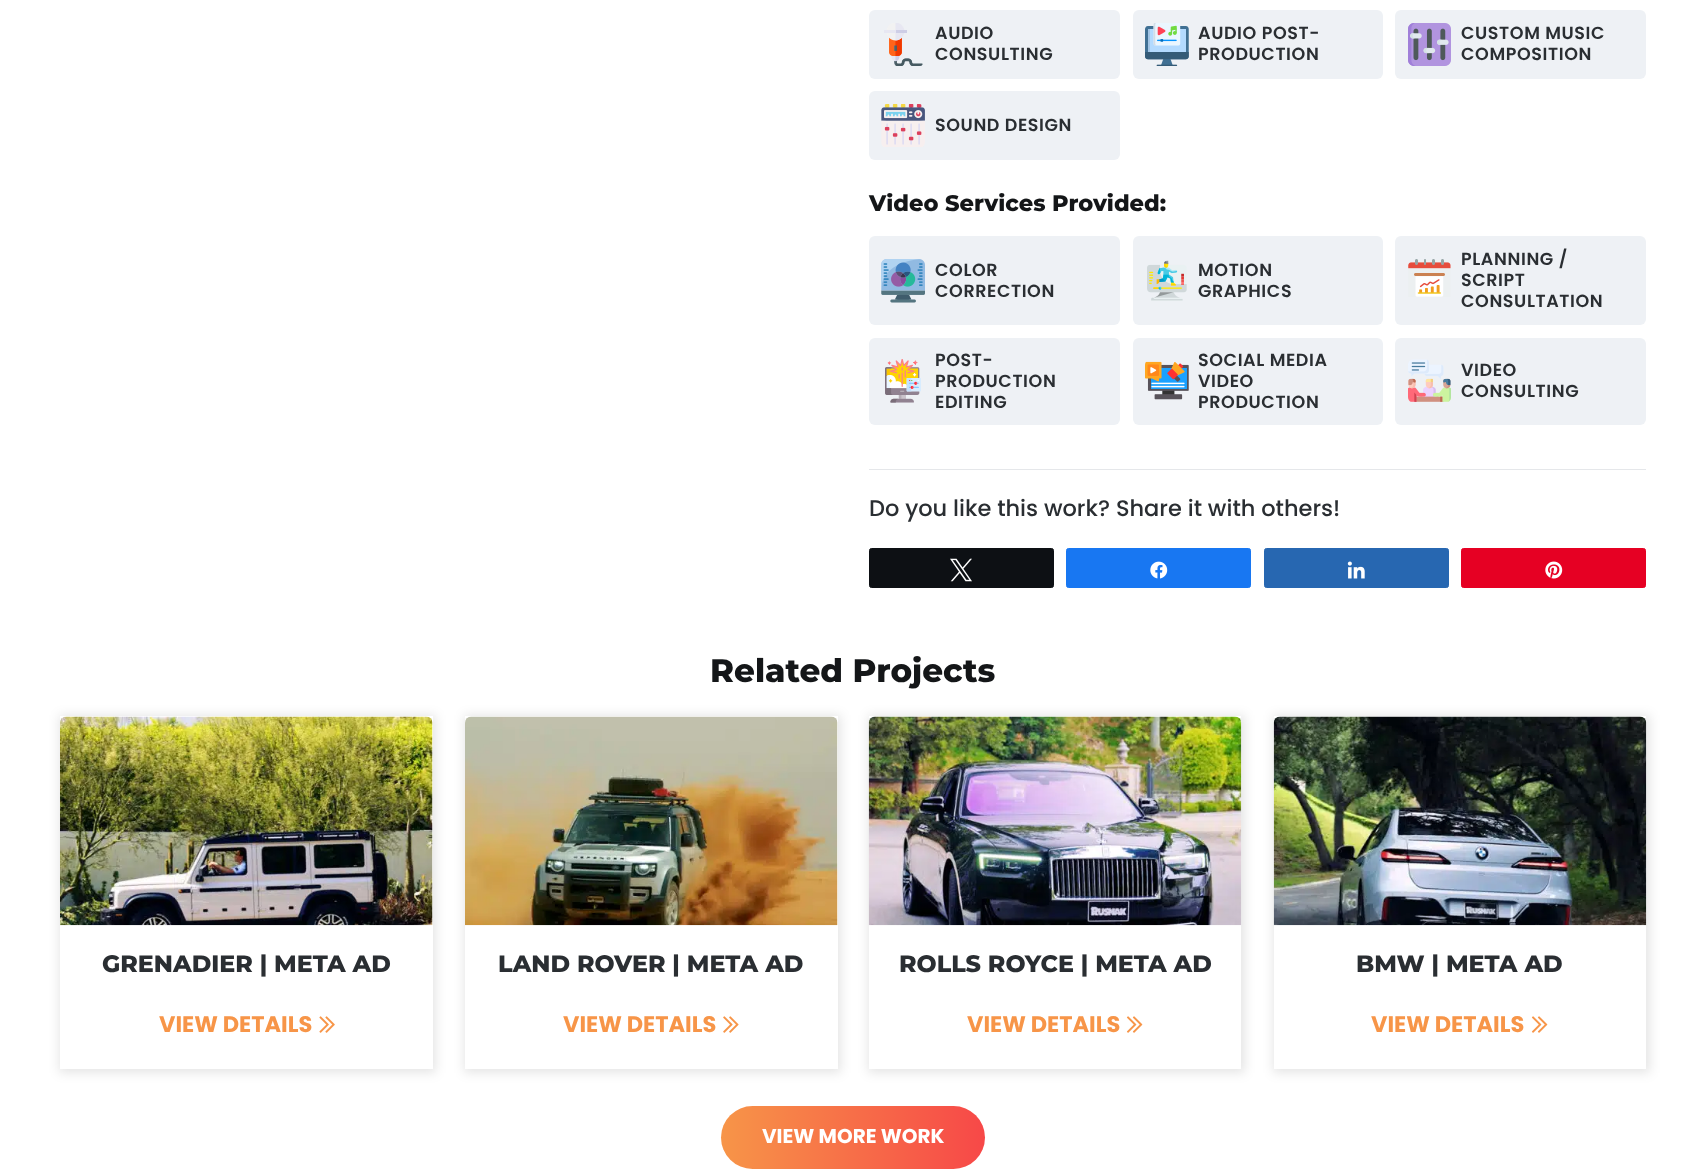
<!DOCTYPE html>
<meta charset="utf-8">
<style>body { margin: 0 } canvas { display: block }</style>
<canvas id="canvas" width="1706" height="1172"></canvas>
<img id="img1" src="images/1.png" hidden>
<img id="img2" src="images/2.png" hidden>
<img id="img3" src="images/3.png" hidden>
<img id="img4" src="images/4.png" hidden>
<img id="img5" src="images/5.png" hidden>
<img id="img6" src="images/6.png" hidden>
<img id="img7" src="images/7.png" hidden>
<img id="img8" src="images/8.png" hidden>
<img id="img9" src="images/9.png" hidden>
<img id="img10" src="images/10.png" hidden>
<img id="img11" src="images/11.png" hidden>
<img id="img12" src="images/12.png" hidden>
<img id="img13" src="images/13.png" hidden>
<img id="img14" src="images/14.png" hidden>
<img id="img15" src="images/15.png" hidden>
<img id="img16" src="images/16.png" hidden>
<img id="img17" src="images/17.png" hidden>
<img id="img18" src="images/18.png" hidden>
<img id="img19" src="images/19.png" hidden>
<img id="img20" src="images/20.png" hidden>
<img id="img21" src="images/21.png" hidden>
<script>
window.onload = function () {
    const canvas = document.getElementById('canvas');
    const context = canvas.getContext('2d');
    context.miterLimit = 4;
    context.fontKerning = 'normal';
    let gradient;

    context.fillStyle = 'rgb(255, 255, 255)';
    context.fillRect(0, 0, 1706, 1172);
    context.fillStyle = 'rgb(238, 241, 245)';
    context.beginPath();
    context.roundRect(869, 10, 251, 69, 6);
    context.fill();
    context.drawImage(document.getElementById('img1'), 884, 23, 39, 43);
    context.beginPath();
    context.roundRect(1133, 10, 250, 69, 6);
    context.fill();
    context.drawImage(document.getElementById('img2'), 1145, 23, 44, 43);
    context.beginPath();
    context.roundRect(1395, 10, 251, 69, 6);
    context.fill();
    context.drawImage(document.getElementById('img3'), 1408, 23, 43, 43);
    context.beginPath();
    context.roundRect(869, 91, 251, 69, 6);
    context.fill();
    context.drawImage(document.getElementById('img4'), 881, 104, 44, 43);
    context.beginPath();
    context.roundRect(869, 236, 251, 89, 6);
    context.fill();
    context.drawImage(document.getElementById('img5'), 881, 259, 44, 44);
    context.beginPath();
    context.roundRect(1133, 236, 250, 89, 6);
    context.fill();
    context.drawImage(document.getElementById('img6'), 1147, 260, 40, 41);
    context.beginPath();
    context.roundRect(1395, 236, 251, 89, 6);
    context.fill();
    context.drawImage(document.getElementById('img7'), 1408, 259, 43, 38);
    context.beginPath();
    context.roundRect(869, 338, 251, 87, 6);
    context.fill();
    context.drawImage(document.getElementById('img8'), 885, 359, 36, 44);
    context.beginPath();
    context.roundRect(1133, 338, 250, 87, 6);
    context.fill();
    context.drawImage(document.getElementById('img9'), 1145, 361, 44, 39);
    context.beginPath();
    context.roundRect(1395, 338, 251, 87, 6);
    context.fill();
    context.drawImage(document.getElementById('img10'), 1408, 359, 43, 43);
    context.fillStyle = 'rgb(229, 231, 234)';
    context.fillRect(869, 469, 777, 1);
    context.fillStyle = 'rgb(13, 16, 20)';
    context.beginPath();
    context.roundRect(869.5, 548.5, 184, 39, 2);
    context.fill();
    context.strokeStyle = 'rgb(13, 16, 20)';
    context.stroke();
    context.drawImage(document.getElementById('img11'), 950, 558, 22, 24);
    context.fillStyle = 'rgb(24, 119, 242)';
    context.beginPath();
    context.roundRect(1066.5, 548.5, 184, 39, 2);
    context.fill();
    context.strokeStyle = 'rgb(24, 119, 242)';
    context.stroke();
    context.drawImage(document.getElementById('img12'), 1150, 561, 18, 18);
    context.fillStyle = 'rgb(39, 103, 177)';
    context.beginPath();
    context.roundRect(1264.5, 548.5, 184, 39, 2);
    context.fill();
    context.strokeStyle = 'rgb(39, 103, 177)';
    context.stroke();
    context.drawImage(document.getElementById('img13'), 1347, 561, 18, 18);
    context.fillStyle = 'rgb(230, 0, 35)';
    context.beginPath();
    context.roundRect(1461.5, 548.5, 184, 39, 2);
    context.fill();
    context.strokeStyle = 'rgb(230, 0, 35)';
    context.stroke();
    context.drawImage(document.getElementById('img14'), 1545, 561, 18, 18);
    context.fillStyle = 'rgba(0, 0, 0, 0.1)';
    context.filter = 'blur(5.5px)';
    context.beginPath();
    context.rect(59, 715, 377, 358);
    context.fill();
    context.filter = 'none';
    context.fillStyle = 'rgb(255, 255, 255)';
    context.fillRect(60, 716, 373, 353);
    context.drawImage(document.getElementById('img15'), 60, 716, 373, 210);
    context.drawImage(document.getElementById('img16'), 319, 1016, 16, 17);
    context.fillStyle = 'rgba(0, 0, 0, 0.1)';
    context.filter = 'blur(5.5px)';
    context.beginPath();
    context.rect(464, 715, 377, 358);
    context.fill();
    context.filter = 'none';
    context.fillStyle = 'rgb(255, 255, 255)';
    context.fillRect(465, 716, 373, 353);
    context.drawImage(document.getElementById('img17'), 465, 716, 373, 210);
    context.drawImage(document.getElementById('img18'), 723, 1016, 16, 17);
    context.fillStyle = 'rgba(0, 0, 0, 0.1)';
    context.filter = 'blur(5.5px)';
    context.beginPath();
    context.rect(868, 715, 377, 358);
    context.fill();
    context.filter = 'none';
    context.fillStyle = 'rgb(255, 255, 255)';
    context.fillRect(869, 716, 372, 353);
    context.drawImage(document.getElementById('img19'), 868, 716, 374, 210);
    context.drawImage(document.getElementById('img20'), 1126, 1016, 17, 17);
    context.fillStyle = 'rgba(0, 0, 0, 0.1)';
    context.filter = 'blur(5.5px)';
    context.beginPath();
    context.rect(1273, 715, 377, 358);
    context.fill();
    context.filter = 'none';
    context.fillStyle = 'rgb(255, 255, 255)';
    context.fillRect(1274, 716, 372, 353);
    context.drawImage(document.getElementById('img21'), 1273, 716, 374, 210);
    context.drawImage(document.getElementById('img20'), 1531, 1016, 17, 17);
    gradient = context.createLinearGradient(721, 1138, 985, 1138);
    gradient.addColorStop(0, 'rgb(247, 149, 72)');
    gradient.addColorStop(1, 'rgb(247, 72, 72)');
    context.fillStyle = gradient;
    context.beginPath();
    context.roundRect(721, 1106, 264, 63, 31.5);
    context.fill();
    context.letterSpacing = '0.6px';
    context.font = '600 17.5px Poppins';
    context.fillStyle = 'rgb(42, 46, 50)';
    context.fillText('AUDIO', 935, 39);
    context.fillText('CONSULTING', 935, 60);
    context.fillText('AUDIO POST-', 1198, 39);
    context.fillText('PRODUCTION', 1198, 60);
    context.fillText('CUSTOM MUSIC', 1461, 39);
    context.fillText('COMPOSITION', 1461, 60);
    context.fillText('SOUND DESIGN', 935, 131);
    context.letterSpacing = '0px';
    context.font = '800 22.5px Montserrat';
    context.fillStyle = 'rgb(20, 22, 24)';
    context.fillText('Video Services Provided:', 869, 211);
    context.letterSpacing = '0.6px';
    context.font = '600 17.5px Poppins';
    context.fillStyle = 'rgb(42, 46, 50)';
    context.fillText('COLOR', 935, 276);
    context.fillText('CORRECTION', 935, 297);
    context.fillText('MOTION', 1198, 276);
    context.fillText('GRAPHICS', 1198, 297);
    context.fillText('PLANNING /', 1461, 265);
    context.fillText('SCRIPT', 1461, 286);
    context.fillText('CONSULTATION', 1461, 307);
    context.fillText('POST-', 935, 366);
    context.fillText('PRODUCTION', 935, 387);
    context.fillText('EDITING', 935, 408);
    context.fillText('SOCIAL MEDIA', 1198, 366);
    context.fillText('VIDEO', 1198, 387);
    context.fillText('PRODUCTION', 1198, 408);
    context.fillText('VIDEO', 1461, 376);
    context.fillText('CONSULTING', 1461, 397);
    context.letterSpacing = '0px';
    context.font = '500 22.5px Poppins';
    context.fillText('Do you like this work? Share it with others!', 869, 516);
    context.font = '800 32.5px Montserrat';
    context.fillStyle = 'rgb(20, 22, 24)';
    context.fillText('Related Projects', 710, 682);
    context.font = '800 23.75px Montserrat';
    context.fillStyle = 'rgb(42, 46, 50)';
    context.fillText('GRENADIER | META AD', 102, 972);
    context.font = 'bold 22.5px Poppins';
    context.fillStyle = 'rgb(247, 149, 72)';
    context.fillText('VIEW DETAILS', 159, 1032);
    context.font = '800 23.75px Montserrat';
    context.fillStyle = 'rgb(42, 46, 50)';
    context.fillText('LAND ROVER | META AD', 498, 972);
    context.font = 'bold 22.5px Poppins';
    context.fillStyle = 'rgb(247, 149, 72)';
    context.fillText('VIEW DETAILS', 563, 1032);
    context.font = '800 23.75px Montserrat';
    context.fillStyle = 'rgb(42, 46, 50)';
    context.fillText('ROLLS ROYCE | META AD', 899, 972);
    context.font = 'bold 22.5px Poppins';
    context.fillStyle = 'rgb(247, 149, 72)';
    context.fillText('VIEW DETAILS', 967, 1032);
    context.font = '800 23.75px Montserrat';
    context.fillStyle = 'rgb(42, 46, 50)';
    context.fillText('BMW | META AD', 1356, 972);
    context.font = 'bold 22.5px Poppins';
    context.fillStyle = 'rgb(247, 149, 72)';
    context.fillText('VIEW DETAILS', 1371, 1032);
    context.font = 'bold 20px Poppins';
    context.fillStyle = 'rgb(255, 255, 255)';
    context.fillText('VIEW MORE WORK', 762, 1143);
};
</script>
